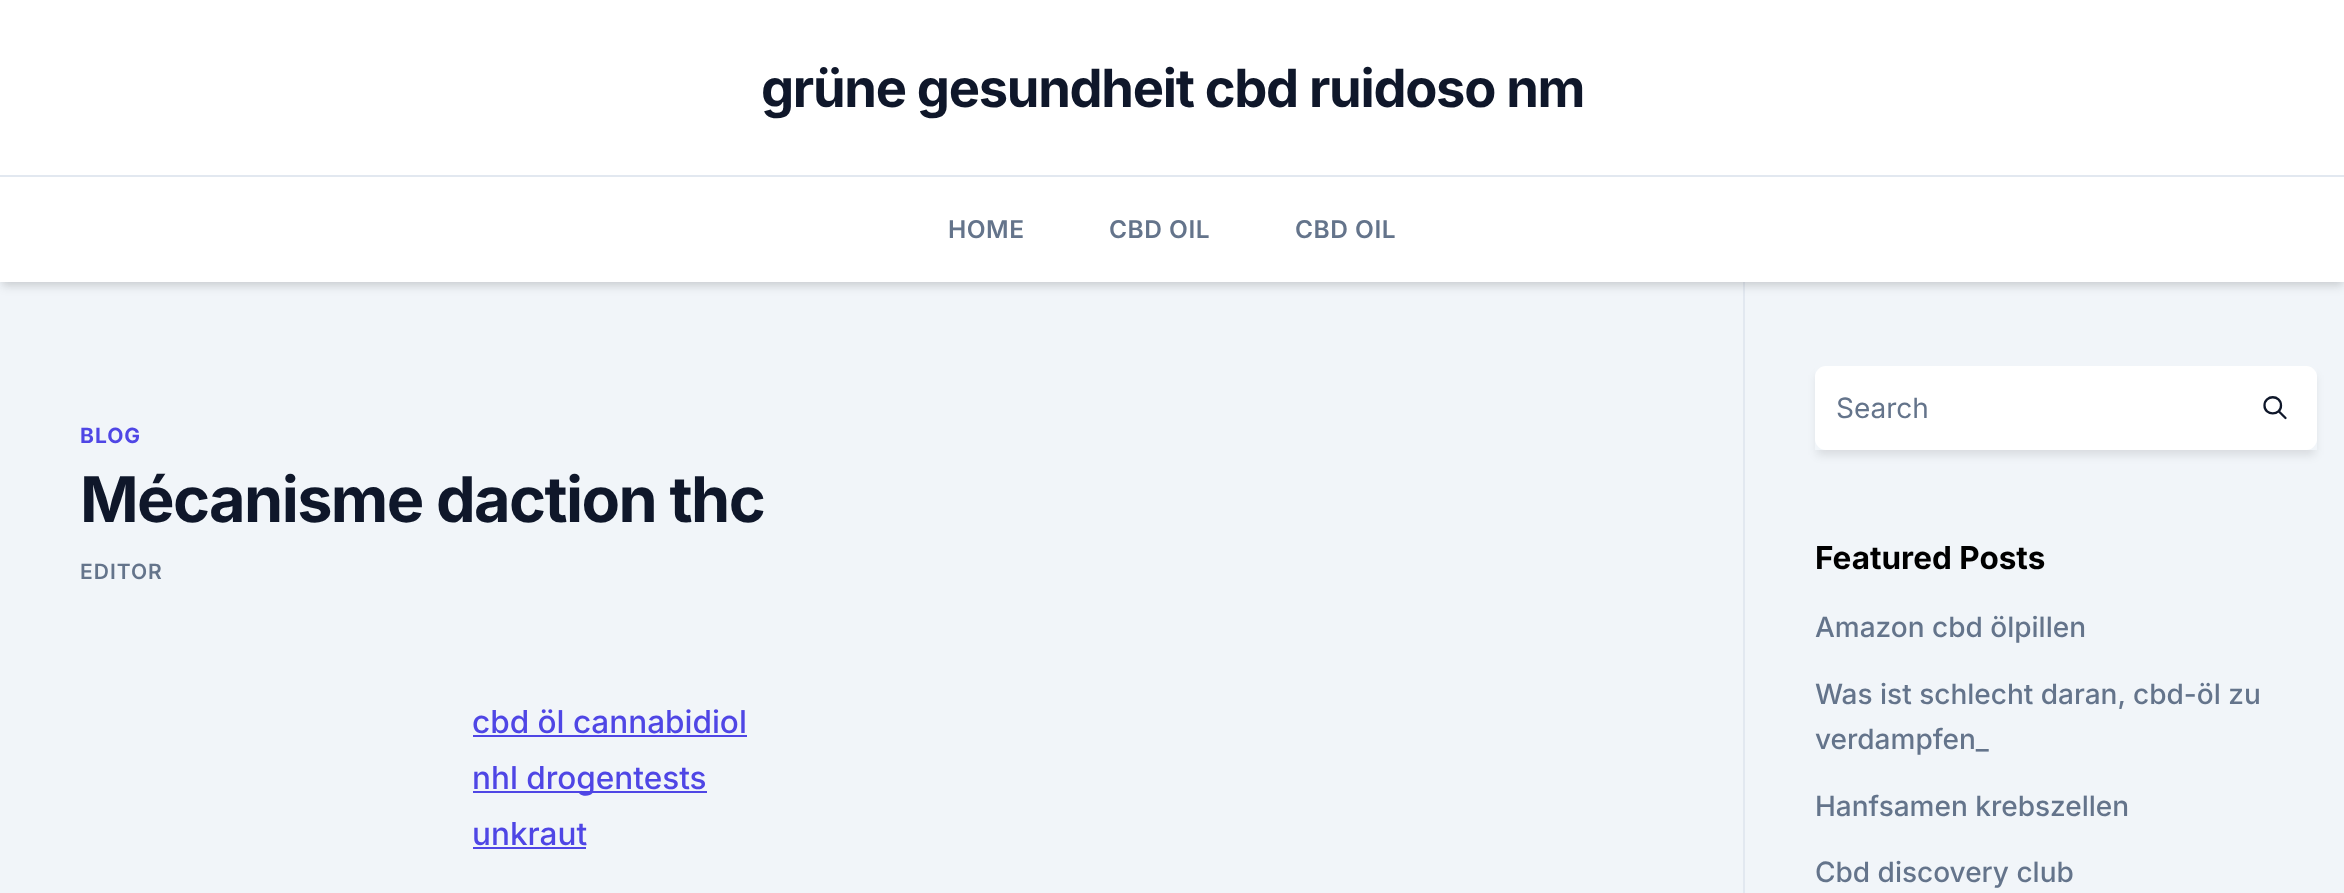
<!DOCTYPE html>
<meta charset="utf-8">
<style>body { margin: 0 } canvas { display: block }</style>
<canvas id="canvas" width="2344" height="893"></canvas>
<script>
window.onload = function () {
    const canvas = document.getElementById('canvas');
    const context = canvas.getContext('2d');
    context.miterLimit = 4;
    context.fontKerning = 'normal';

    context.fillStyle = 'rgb(241, 245, 249)';
    context.fillRect(0, 0, 2344, 893);
    context.fillStyle = 'rgb(226, 232, 240)';
    context.fillRect(1743, 282, 2, 611);
    context.fillStyle = 'rgba(0, 0, 0, 0.06)';
    context.filter = 'blur(3.5px)';
    context.beginPath();
    context.rect(2, 5, 2341, 279);
    context.fill();
    context.filter = 'none';
    context.fillStyle = 'rgba(0, 0, 0, 0.1)';
    context.filter = 'blur(5px)';
    context.beginPath();
    context.rect(2, 9, 2341, 278);
    context.fill();
    context.filter = 'none';
    context.fillStyle = 'rgb(255, 255, 255)';
    context.fillRect(0, 0, 2344, 282);
    context.fillStyle = 'rgb(226, 232, 240)';
    context.fillRect(0, 175, 2344, 2);
    context.fillStyle = 'rgb(79, 70, 229)';
    context.fillRect(473, 735, 274, 2);
    context.fillRect(473, 791, 234, 2);
    context.fillRect(473, 847, 113, 2);
    context.save();
    context.beginPath();
    context.moveTo(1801, 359);
    context.lineTo(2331, 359);
    context.lineTo(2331, 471);
    context.lineTo(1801, 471);
    context.closePath();
    context.moveTo(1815, 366);
    context.lineTo(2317, 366);
    context.lineTo(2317, 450);
    context.lineTo(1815, 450);
    context.closePath();
    context.clip('evenodd');
    context.fillStyle = 'rgba(0, 0, 0, 0.1)';
    context.filter = 'blur(5px)';
    context.beginPath();
    context.rect(1817, 375, 498, 80);
    context.fill();
    context.filter = 'none';
    context.restore();
    context.fillStyle = 'rgb(255, 255, 255)';
    context.beginPath();
    context.roundRect(1815, 366, 418, 84, [11, 0, 0, 11]);
    context.fill();
    context.beginPath();
    context.roundRect(2233, 366, 84, 84, [0, 11, 11, 0]);
    context.fill();
    context.beginPath();
    context.moveTo(2285.5, 418);
    context.lineTo(2278.5, 411);
    context.moveTo(2281, 405.5);
    context.bezierCurveTo(2281, 416, 2264.5, 416, 2264.5, 405.5);
    context.bezierCurveTo(2264.5, 394.5, 2281, 394.5, 2281, 405.5);
    context.closePath();
    context.strokeStyle = 'rgb(15, 23, 42)';
    context.lineWidth = 2.3;
    context.lineCap = 'round';
    context.lineJoin = 'round';
    context.stroke();
    context.letterSpacing = '-1.3px';
    context.font = 'bold 52.5px Inter';
    context.fillStyle = 'rgb(15, 23, 42)';
    context.fillText('grüne gesundheit cbd ruidoso nm', 761, 107);
    context.letterSpacing = '0.5px';
    context.font = '600 24.5px Inter';
    context.fillStyle = 'rgb(100, 116, 139)';
    context.fillText('HOME', 948, 238);
    context.fillText('CBD OIL', 1109, 238);
    context.fillText('CBD OIL', 1295, 238);
    context.letterSpacing = '1px';
    context.font = 'bold 21px Inter';
    context.fillStyle = 'rgb(79, 70, 229)';
    context.fillText('BLOG', 80, 443);
    context.letterSpacing = '-1.6px';
    context.font = 'bold 63px Inter';
    context.fillStyle = 'rgb(15, 23, 42)';
    context.fillText('Mécanisme daction thc', 80, 522);
    context.letterSpacing = '1px';
    context.font = '600 21px Inter';
    context.fillStyle = 'rgb(100, 116, 139)';
    context.fillText('EDITOR', 80, 579);
    context.letterSpacing = '0px';
    context.font = '500 31.5px Inter';
    context.fillStyle = 'rgb(79, 70, 229)';
    context.fillText('cbd öl cannabidiol', 472, 733);
    context.fillText('nhl drogentests', 472, 789);
    context.fillText('unkraut', 472, 845);
    context.font = '28px Inter';
    context.fillStyle = 'rgb(100, 116, 139)';
    context.fillText('Search', 1836, 418);
    context.font = 'bold 31.5px Inter';
    context.fillStyle = 'rgb(0, 0, 0)';
    context.fillText('Featured Posts', 1815, 569);
    context.font = '500 28px Inter';
    context.fillStyle = 'rgb(100, 116, 139)';
    context.fillText('Amazon cbd ölpillen', 1815, 637);
    context.fillText('Was ist schlecht daran, cbd-öl zu', 1815, 704);
    context.fillText('verdampfen_', 1815, 749);
    context.fillText('Hanfsamen krebszellen', 1815, 816);
    context.fillText('Cbd discovery club', 1815, 882);
};
</script>
